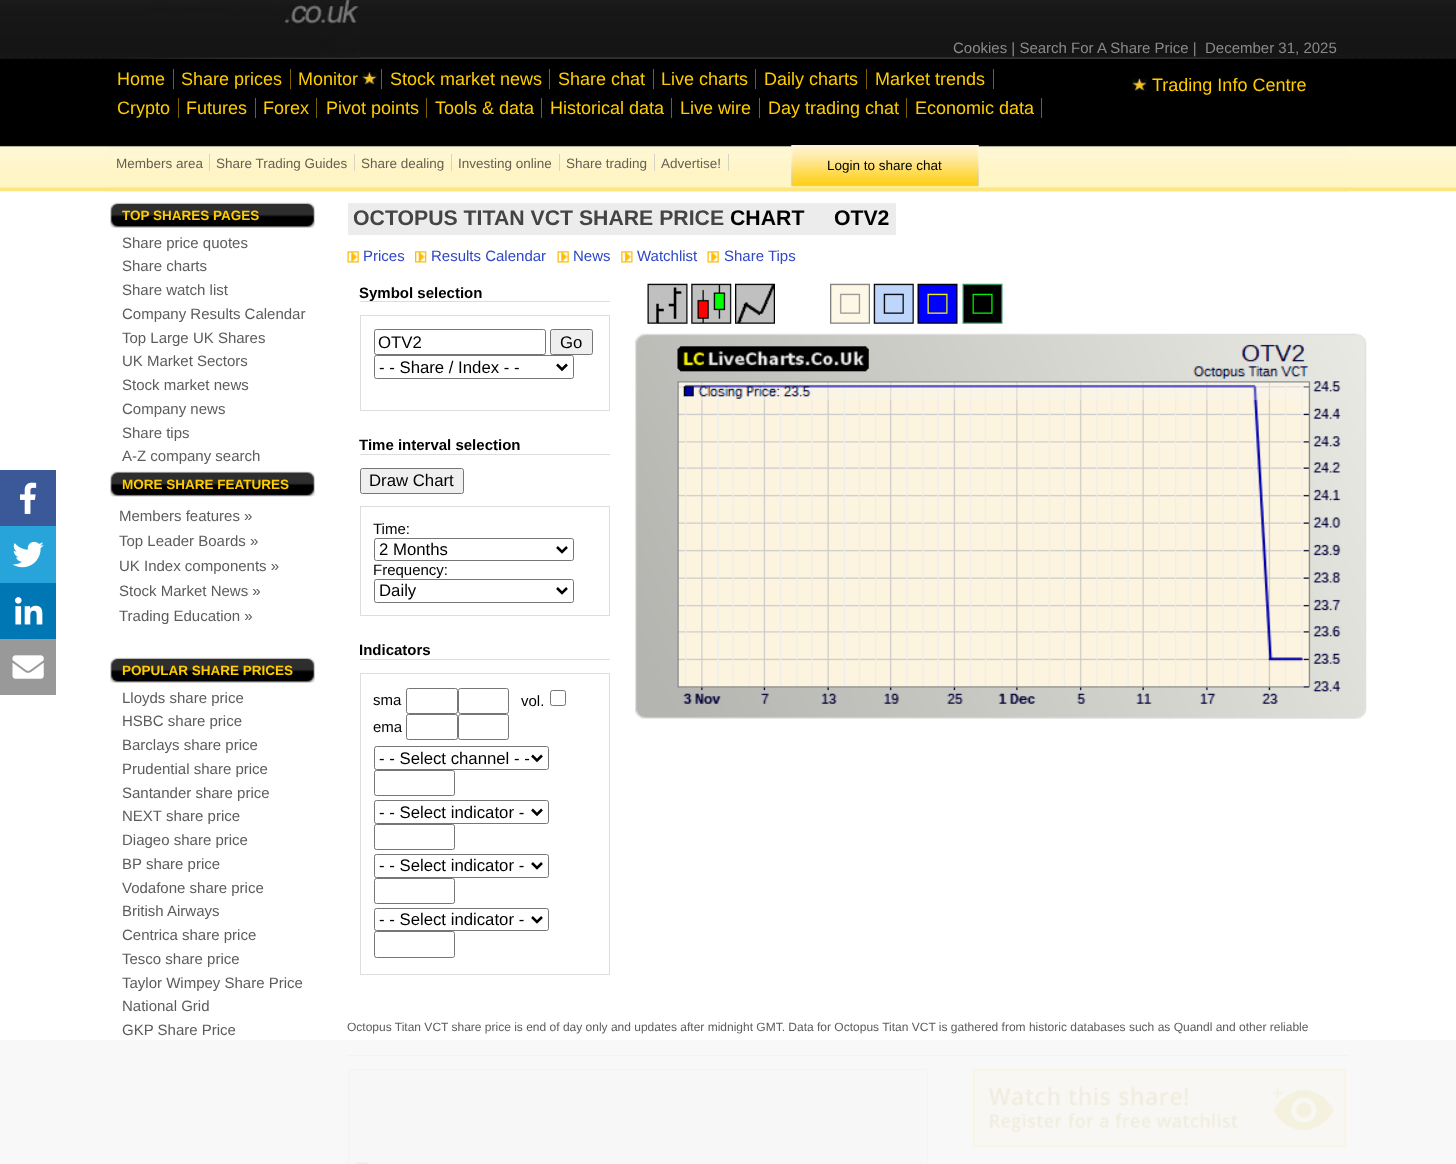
<!DOCTYPE html>
<meta charset="utf-8">
<style>body { margin: 0 } canvas { display: block }</style>
<canvas id="canvas" width="1456" height="1164"></canvas>
<img id="img1" src="images/1.png" hidden>
<img id="img2" src="images/2.png" hidden>
<img id="img3" src="images/3.png" hidden>
<img id="img4" src="images/4.png" hidden>
<img id="img5" src="images/5.png" hidden>
<img id="img6" src="images/6.png" hidden>
<img id="img7" src="images/7.png" hidden>
<img id="img8" src="images/8.png" hidden>
<img id="img9" src="images/9.png" hidden>
<img id="img10" src="images/10.png" hidden>
<img id="img11" src="images/11.png" hidden>
<img id="img12" src="images/12.png" hidden>
<img id="img13" src="images/13.png" hidden>
<img id="img14" src="images/14.png" hidden>
<img id="img15" src="images/15.png" hidden>
<img id="img16" src="images/16.png" hidden>
<img id="img17" src="images/17.png" hidden>
<img id="img18" src="images/18.png" hidden>
<img id="img19" src="images/19.png" hidden>
<img id="img20" src="images/20.png" hidden>
<img id="img21" src="images/21.png" hidden>
<img id="img22" src="images/22.png" hidden>
<img id="img23" src="images/23.png" hidden>
<img id="img24" src="images/24.png" hidden>
<img id="img25" src="images/25.png" hidden>
<img id="img26" src="images/26.png" hidden>
<script>
window.onload = function () {
    const canvas = document.getElementById('canvas');
    const context = canvas.getContext('2d');
    context.miterLimit = 4;
    context.fontKerning = 'normal';

    context.fillStyle = 'rgb(255, 255, 255)';
    context.fillRect(0, 0, 1456, 1164);
    context.drawImage(document.getElementById('img1'), 0, 0, 1456, 192);
    context.fillStyle = 'rgb(59, 89, 152)';
    context.fillRect(0, 470, 56, 56);
    context.drawImage(document.getElementById('img2'), 20, 482, 17, 32);
    context.fillStyle = 'rgb(39, 165, 218)';
    context.fillRect(0, 526, 56, 57);
    context.drawImage(document.getElementById('img3'), 12, 541, 32, 27);
    context.fillStyle = 'rgb(0, 119, 181)';
    context.fillRect(0, 583, 56, 56);
    context.drawImage(document.getElementById('img4'), 15, 597, 28, 28);
    context.fillStyle = 'rgb(153, 153, 153)';
    context.fillRect(0, 639, 56, 56);
    context.drawImage(document.getElementById('img5'), 12, 655, 32, 24);
    context.drawImage(document.getElementById('img6'), 110, 57, 1238, 135);
    context.drawImage(document.getElementById('img7'), 150, 0, 210, 58);
    context.fillStyle = 'rgb(121, 97, 1)';
    context.fillRect(173, 69, 1, 20);
    context.fillRect(290, 69, 1, 20);
    context.fillRect(381, 69, 1, 20);
    context.drawImage(document.getElementById('img8'), 362, 72, 16, 13);
    context.fillRect(549, 69, 1, 20);
    context.fillRect(653, 69, 1, 20);
    context.fillRect(755, 69, 1, 20);
    context.fillRect(866, 69, 1, 20);
    context.fillRect(993, 69, 1, 20);
    context.fillRect(178, 98, 1, 20);
    context.fillRect(255, 98, 1, 20);
    context.fillRect(316, 98, 1, 20);
    context.fillRect(426, 98, 1, 20);
    context.fillRect(541, 98, 1, 20);
    context.fillRect(671, 98, 1, 20);
    context.fillRect(759, 98, 1, 20);
    context.fillRect(906, 98, 1, 20);
    context.fillRect(1041, 98, 1, 20);
    context.drawImage(document.getElementById('img9'), 1132, 78, 16, 14);
    context.fillStyle = 'rgb(216, 212, 195)';
    context.fillRect(209, 154, 1, 17);
    context.fillRect(354, 154, 1, 17);
    context.fillRect(451, 154, 1, 17);
    context.fillRect(559, 154, 1, 17);
    context.fillRect(654, 154, 1, 17);
    context.fillRect(728, 154, 1, 17);
    context.drawImage(document.getElementById('img10'), 791, 145, 188, 42);
    context.drawImage(document.getElementById('img11'), 110, 202, 205, 26);
    context.drawImage(document.getElementById('img12'), 110, 471, 205, 26);
    context.drawImage(document.getElementById('img11'), 110, 657, 205, 26);
    context.fillStyle = 'rgb(236, 236, 236)';
    context.fillRect(348, 203, 548, 32);
    context.drawImage(document.getElementById('img13'), 347, 251, 12, 12);
    context.drawImage(document.getElementById('img14'), 415, 251, 12, 12);
    context.drawImage(document.getElementById('img13'), 557, 251, 12, 12);
    context.drawImage(document.getElementById('img15'), 621, 251, 12, 12);
    context.drawImage(document.getElementById('img16'), 707, 251, 12, 12);
    context.fillStyle = 'rgb(221, 221, 221)';
    context.fillRect(360, 301, 250, 1);
    context.strokeStyle = 'rgb(221, 221, 221)';
    context.strokeRect(360.5, 315.5, 249, 95);
    context.beginPath();
    context.roundRect(374.5, 329.5, 171, 25, 2);
    context.strokeStyle = 'rgb(118, 118, 118)';
    context.stroke();
    context.fillStyle = 'rgb(239, 239, 239)';
    context.beginPath();
    context.roundRect(550.5, 329.5, 42, 25, 2);
    context.fill();
    context.stroke();
    context.beginPath();
    context.roundRect(374.5, 355.5, 199, 23, 2);
    context.stroke();
    context.beginPath();
    context.moveTo(557, 364.5);
    context.lineTo(562, 369.5);
    context.lineTo(567, 364.5);
    context.strokeStyle = 'rgb(0, 0, 0)';
    context.lineWidth = 2.5;
    context.stroke();
    context.fillStyle = 'rgb(221, 221, 221)';
    context.fillRect(360, 454, 250, 1);
    context.fillStyle = 'rgb(239, 239, 239)';
    context.beginPath();
    context.roundRect(360.5, 468.5, 103, 25, 2);
    context.fill();
    context.strokeStyle = 'rgb(118, 118, 118)';
    context.lineWidth = 1;
    context.stroke();
    context.strokeStyle = 'rgb(221, 221, 221)';
    context.strokeRect(360.5, 506.5, 249, 109);
    context.beginPath();
    context.roundRect(374.5, 538.5, 199, 22, 2);
    context.strokeStyle = 'rgb(118, 118, 118)';
    context.stroke();
    context.beginPath();
    context.moveTo(557, 547);
    context.lineTo(562, 552);
    context.lineTo(567, 547);
    context.strokeStyle = 'rgb(0, 0, 0)';
    context.lineWidth = 2.5;
    context.stroke();
    context.beginPath();
    context.roundRect(374.5, 579.5, 199, 23, 2);
    context.strokeStyle = 'rgb(118, 118, 118)';
    context.lineWidth = 1;
    context.stroke();
    context.beginPath();
    context.moveTo(557, 588);
    context.lineTo(562, 593);
    context.lineTo(567, 588);
    context.strokeStyle = 'rgb(0, 0, 0)';
    context.lineWidth = 2.5;
    context.stroke();
    context.fillStyle = 'rgb(221, 221, 221)';
    context.fillRect(360, 659, 250, 1);
    context.strokeStyle = 'rgb(221, 221, 221)';
    context.lineWidth = 1;
    context.strokeRect(360.5, 673.5, 249, 301);
    context.beginPath();
    context.roundRect(406.5, 688.5, 51, 25, 2);
    context.strokeStyle = 'rgb(118, 118, 118)';
    context.stroke();
    context.beginPath();
    context.roundRect(458.5, 688.5, 50, 25, 2);
    context.stroke();
    context.beginPath();
    context.roundRect(550.5, 690.5, 15, 15, 2);
    context.stroke();
    context.beginPath();
    context.roundRect(406.5, 714.5, 51, 25, 2);
    context.stroke();
    context.beginPath();
    context.roundRect(458.5, 714.5, 50, 25, 2);
    context.stroke();
    context.beginPath();
    context.roundRect(374.5, 746.5, 174, 23, 2);
    context.stroke();
    context.beginPath();
    context.moveTo(532, 755.5);
    context.lineTo(537, 760.5);
    context.lineTo(542, 755.5);
    context.strokeStyle = 'rgb(0, 0, 0)';
    context.lineWidth = 2.5;
    context.stroke();
    context.beginPath();
    context.roundRect(374.5, 770.5, 80, 25, 2);
    context.strokeStyle = 'rgb(118, 118, 118)';
    context.lineWidth = 1;
    context.stroke();
    context.beginPath();
    context.roundRect(374.5, 800.5, 174, 23, 2);
    context.stroke();
    context.beginPath();
    context.moveTo(532, 809.5);
    context.lineTo(537, 814.5);
    context.lineTo(542, 809.5);
    context.strokeStyle = 'rgb(0, 0, 0)';
    context.lineWidth = 2.5;
    context.stroke();
    context.beginPath();
    context.roundRect(374.5, 824.5, 80, 25, 2);
    context.strokeStyle = 'rgb(118, 118, 118)';
    context.lineWidth = 1;
    context.stroke();
    context.beginPath();
    context.roundRect(374.5, 854.5, 174, 23, 2);
    context.stroke();
    context.beginPath();
    context.moveTo(532, 863);
    context.lineTo(537, 868);
    context.lineTo(542, 863);
    context.strokeStyle = 'rgb(0, 0, 0)';
    context.lineWidth = 2.5;
    context.stroke();
    context.beginPath();
    context.roundRect(374.5, 878.5, 80, 25, 2);
    context.strokeStyle = 'rgb(118, 118, 118)';
    context.lineWidth = 1;
    context.stroke();
    context.beginPath();
    context.roundRect(374.5, 908.5, 174, 22, 2);
    context.stroke();
    context.beginPath();
    context.moveTo(532, 917);
    context.lineTo(537, 922);
    context.lineTo(542, 917);
    context.strokeStyle = 'rgb(0, 0, 0)';
    context.lineWidth = 2.5;
    context.stroke();
    context.beginPath();
    context.roundRect(374.5, 931.5, 80, 26, 2);
    context.strokeStyle = 'rgb(118, 118, 118)';
    context.lineWidth = 1;
    context.stroke();
    context.drawImage(document.getElementById('img17'), 647, 283, 41, 41);
    context.drawImage(document.getElementById('img18'), 691, 283, 41, 41);
    context.drawImage(document.getElementById('img19'), 735, 283, 40, 41);
    context.drawImage(document.getElementById('img20'), 830, 283, 40, 41);
    context.drawImage(document.getElementById('img21'), 873, 283, 41, 41);
    context.drawImage(document.getElementById('img22'), 917, 283, 41, 41);
    context.drawImage(document.getElementById('img23'), 962, 283, 41, 41);
    context.drawImage(document.getElementById('img24'), 635, 333, 732, 386);
    context.fillStyle = 'rgb(204, 204, 204)';
    context.fillRect(348, 1055, 1000, 1);
    context.fillStyle = 'rgb(239, 239, 239)';
    context.beginPath();
    context.rect(348.5, 1069.5, 579, 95);
    context.fill();
    context.strokeStyle = 'rgb(214, 214, 214)';
    context.stroke();
    context.drawImage(document.getElementById('img25'), 356, 1162, 12, 2);
    context.drawImage(document.getElementById('img26'), 972, 1068, 375, 80);
    context.fillStyle = 'rgba(247, 247, 247, 0.9)';
    context.fillRect(0, 1040, 1456, 124);
    context.font = '15px Liberation Sans';
    context.fillStyle = 'rgb(138, 138, 138)';
    context.fillText('Cookies | Search For A Share Price |', 953, 53);
    context.fillText('December 31, 2025', 1205, 53);
    context.font = '18px Liberation Sans';
    context.fillStyle = 'rgb(255, 204, 0)';
    context.fillText('Home', 117, 85);
    context.fillText('Share prices', 181, 85);
    context.fillText('Monitor', 298, 85);
    context.fillText('Stock market news', 390, 85);
    context.fillText('Share chat', 558, 85);
    context.fillText('Live charts', 661, 85);
    context.fillText('Daily charts', 764, 85);
    context.fillText('Market trends', 875, 85);
    context.fillText('Crypto', 117, 114);
    context.fillText('Futures', 186, 114);
    context.fillText('Forex', 263, 114);
    context.fillText('Pivot points', 326, 114);
    context.fillText('Tools & data', 435, 114);
    context.fillText('Historical data', 550, 114);
    context.fillText('Live wire', 680, 114);
    context.fillText('Day trading chat', 768, 114);
    context.fillText('Economic data', 915, 114);
    context.fillText('Trading Info Centre', 1152, 91);
    context.font = '13.5px Liberation Sans';
    context.fillStyle = 'rgb(102, 98, 81)';
    context.fillText('Members area', 116, 168);
    context.fillText('Share Trading Guides', 216, 168);
    context.fillText('Share dealing', 361, 168);
    context.fillText('Investing online', 458, 168);
    context.fillText('Share trading', 566, 168);
    context.fillText('Advertise!', 661, 168);
    context.fillStyle = 'rgb(0, 0, 0)';
    context.fillText('Login to share chat', 827, 170);
    context.font = 'bold 13.5px Liberation Sans';
    context.fillStyle = 'rgb(255, 204, 0)';
    context.fillText('TOP SHARES PAGES', 122, 220);
    context.font = '15px Liberation Sans';
    context.fillStyle = 'rgb(92, 92, 92)';
    context.fillText('Share price quotes', 122, 248);
    context.fillText('Share charts', 122, 271);
    context.fillText('Share watch list', 122, 295);
    context.fillText('Company Results Calendar', 122, 319);
    context.fillText('Top Large UK Shares', 122, 343);
    context.fillText('UK Market Sectors', 122, 366);
    context.fillText('Stock market news', 122, 390);
    context.fillText('Company news', 122, 414);
    context.fillText('Share tips', 122, 438);
    context.fillText('A-Z company search', 122, 461);
    context.font = 'bold 13.5px Liberation Sans';
    context.fillStyle = 'rgb(255, 204, 0)';
    context.fillText('MORE SHARE FEATURES', 122, 489);
    context.font = '15px Liberation Sans';
    context.fillStyle = 'rgb(92, 92, 92)';
    context.fillText('Members features »', 119, 521);
    context.fillText('Top Leader Boards »', 119, 546);
    context.fillText('UK Index components »', 119, 571);
    context.fillText('Stock Market News »', 119, 596);
    context.fillText('Trading Education »', 119, 621);
    context.font = 'bold 13.5px Liberation Sans';
    context.fillStyle = 'rgb(255, 204, 0)';
    context.fillText('POPULAR SHARE PRICES', 122, 675);
    context.font = '15px Liberation Sans';
    context.fillStyle = 'rgb(92, 92, 92)';
    context.fillText('Lloyds share price', 122, 703);
    context.fillText('HSBC share price', 122, 726);
    context.fillText('Barclays share price', 122, 750);
    context.fillText('Prudential share price', 122, 774);
    context.fillText('Santander share price', 122, 798);
    context.fillText('NEXT share price', 122, 821);
    context.fillText('Diageo share price', 122, 845);
    context.fillText('BP share price', 122, 869);
    context.fillText('Vodafone share price', 122, 893);
    context.fillText('British Airways', 122, 916);
    context.fillText('Centrica share price', 122, 940);
    context.fillText('Tesco share price', 122, 964);
    context.fillText('Taylor Wimpey Share Price', 122, 988);
    context.fillText('National Grid', 122, 1011);
    context.fillText('GKP Share Price', 122, 1035);
    context.font = 'bold 21.25px Liberation Sans';
    context.fillStyle = 'rgb(68, 68, 68)';
    context.fillText('OCTOPUS TITAN VCT SHARE PRICE', 353, 225);
    context.fillStyle = 'rgb(0, 0, 0)';
    context.fillText('CHART     OTV2', 730, 225);
    context.font = '15px Liberation Sans';
    context.fillStyle = 'rgb(46, 71, 197)';
    context.fillText('Prices', 363, 261);
    context.fillText('Results Calendar', 431, 261);
    context.fillText('News', 573, 261);
    context.fillText('Watchlist', 637, 261);
    context.fillText('Share Tips', 724, 261);
    context.font = 'bold 15px Liberation Sans';
    context.fillStyle = 'rgb(0, 0, 0)';
    context.fillText('Symbol selection', 359, 298);
    context.font = '16.75px Liberation Sans';
    context.fillText('OTV2', 378, 348);
    context.fillText('Go', 560, 348);
    context.fillText('- - Share / Index - -', 379, 373);
    context.font = 'bold 15px Liberation Sans';
    context.fillText('Time interval selection', 359, 450);
    context.font = '16.75px Liberation Sans';
    context.fillText('Draw Chart', 369, 486);
    context.font = '15px Liberation Sans';
    context.fillText('Time:', 373, 534);
    context.font = '16.75px Liberation Sans';
    context.fillText('2 Months', 379, 555);
    context.font = '15px Liberation Sans';
    context.fillText('Frequency:', 373, 575);
    context.font = '16.75px Liberation Sans';
    context.fillText('Daily', 379, 596);
    context.font = 'bold 15px Liberation Sans';
    context.fillText('Indicators', 359, 655);
    context.font = '15px Liberation Sans';
    context.fillText('sma', 373, 705);
    context.fillText('vol.', 521, 706);
    context.fillText('ema', 373, 732);
    context.font = '16.75px Liberation Sans';
    context.fillText('- - Select channel - -', 379, 764);
    context.fillText('- - Select indicator -', 379, 818);
    context.fillText('- - Select indicator -', 379, 871);
    context.fillText('- - Select indicator -', 379, 925);
    context.font = '12px Liberation Sans';
    context.fillStyle = 'rgb(92, 92, 92)';
    context.fillText('Octopus Titan VCT share price is end of day only and updates after midnight GMT. Data for Octopus Titan VCT is gathered from historic databases such as Quandl and other reliable', 347, 1031);
};
</script>
